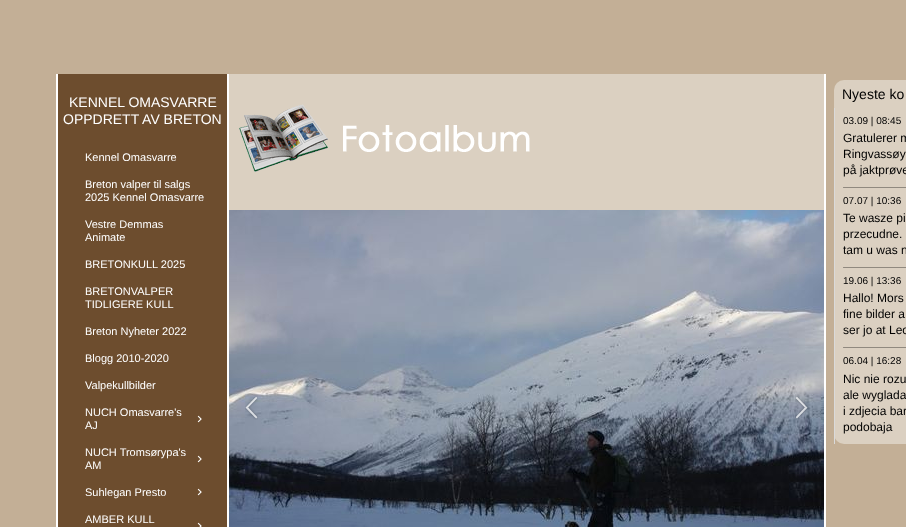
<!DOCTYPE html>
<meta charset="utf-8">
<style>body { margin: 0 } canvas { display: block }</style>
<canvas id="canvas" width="906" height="527"></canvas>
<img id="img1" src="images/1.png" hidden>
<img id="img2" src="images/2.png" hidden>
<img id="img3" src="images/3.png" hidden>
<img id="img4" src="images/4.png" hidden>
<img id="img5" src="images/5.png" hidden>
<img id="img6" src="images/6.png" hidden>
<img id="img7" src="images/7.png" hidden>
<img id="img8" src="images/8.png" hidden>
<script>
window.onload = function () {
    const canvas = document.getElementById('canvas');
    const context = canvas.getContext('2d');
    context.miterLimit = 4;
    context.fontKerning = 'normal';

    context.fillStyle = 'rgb(195, 175, 150)';
    context.fillRect(0, 0, 906, 527);
    context.fillStyle = 'rgb(255, 255, 255)';
    context.fillRect(56, 74, 770, 453);
    context.fillStyle = 'rgb(109, 77, 46)';
    context.fillRect(58, 74, 169, 453);
    context.fillStyle = 'rgb(219, 208, 193)';
    context.fillRect(229, 74, 595, 136);
    context.drawImage(document.getElementById('img1'), 239, 104, 89, 68);
    context.drawImage(document.getElementById('img2'), 343, 125, 187, 27);
    context.drawImage(document.getElementById('img3'), 229, 210, 595, 317);
    context.drawImage(document.getElementById('img4'), 245, 395, 13, 25);
    context.drawImage(document.getElementById('img5'), 795, 395, 13, 25);
    context.beginPath();
    context.roundRect(834, 80, 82, 364, 10);
    context.fill();
    context.fillStyle = 'rgb(218, 218, 218)';
    context.fillRect(834, 108, 1, 336);
    context.drawImage(document.getElementById('img6'), 843, 187, 63, 1);
    context.drawImage(document.getElementById('img6'), 843, 267, 63, 1);
    context.drawImage(document.getElementById('img6'), 843, 347, 63, 1);
    context.drawImage(document.getElementById('img7'), 197, 415, 5, 8);
    context.drawImage(document.getElementById('img7'), 197, 455, 5, 8);
    context.drawImage(document.getElementById('img7'), 197, 488, 5, 8);
    context.drawImage(document.getElementById('img8'), 197, 522, 5, 5);
    context.font = '14px Liberation Sans';
    context.fillStyle = 'rgb(255, 255, 255)';
    context.fillText('KENNEL OMASVARRE', 69, 107);
    context.fillText('OPPDRETT AV BRETON', 63, 124);
    context.fillStyle = 'rgb(0, 0, 0)';
    context.fillText('Nyeste ko', 842, 99);
    context.font = '10px Liberation Sans';
    context.fillText('03.09 | 08:45', 843, 124);
    context.font = '12px Liberation Sans';
    context.fillText('Gratulerer m', 843, 142);
    context.fillText('Ringvassøy', 843, 158);
    context.fillText('på jaktprøve', 843, 174);
    context.font = '10px Liberation Sans';
    context.fillText('07.07 | 10:36', 843, 204);
    context.font = '12px Liberation Sans';
    context.fillText('Te wasze pi', 843, 222);
    context.fillText('przecudne.', 843, 238);
    context.fillText('tam u was n', 843, 254);
    context.font = '10px Liberation Sans';
    context.fillText('19.06 | 13:36', 843, 284);
    context.font = '12px Liberation Sans';
    context.fillText('Hallo! Mors', 843, 302);
    context.fillText('fine bilder a', 843, 318);
    context.fillText('ser jo at Leo', 843, 334);
    context.font = '10px Liberation Sans';
    context.fillText('06.04 | 16:28', 843, 364);
    context.font = '12px Liberation Sans';
    context.fillText('Nic nie rozu', 843, 383);
    context.fillText('ale wyglada', 843, 399);
    context.fillText('i zdjecia bar', 843, 415);
    context.fillText('podobaja', 843, 431);
    context.font = '11px Liberation Sans';
    context.fillStyle = 'rgb(255, 255, 255)';
    context.fillText('Kennel Omasvarre', 85, 161);
    context.fillText('Breton valper til salgs', 85, 188);
    context.fillText('2025 Kennel Omasvarre', 85, 201);
    context.fillText('Vestre Demmas', 85, 228);
    context.fillText('Animate', 85, 241);
    context.fillText('BRETONKULL 2025', 85, 268);
    context.fillText('BRETONVALPER', 85, 295);
    context.fillText('TIDLIGERE KULL', 85, 308);
    context.fillText('Breton Nyheter 2022', 85, 335);
    context.fillText('Blogg 2010-2020', 85, 362);
    context.fillText('Valpekullbilder', 85, 389);
    context.fillText('NUCH Omasvarre\'s', 85, 416);
    context.fillText('AJ', 85, 429);
    context.fillText('NUCH Tromsørypa\'s', 85, 456);
    context.fillText('AM', 85, 469);
    context.fillText('Suhlegan Presto', 85, 496);
    context.fillText('AMBER KULL', 85, 523);
};
</script>
